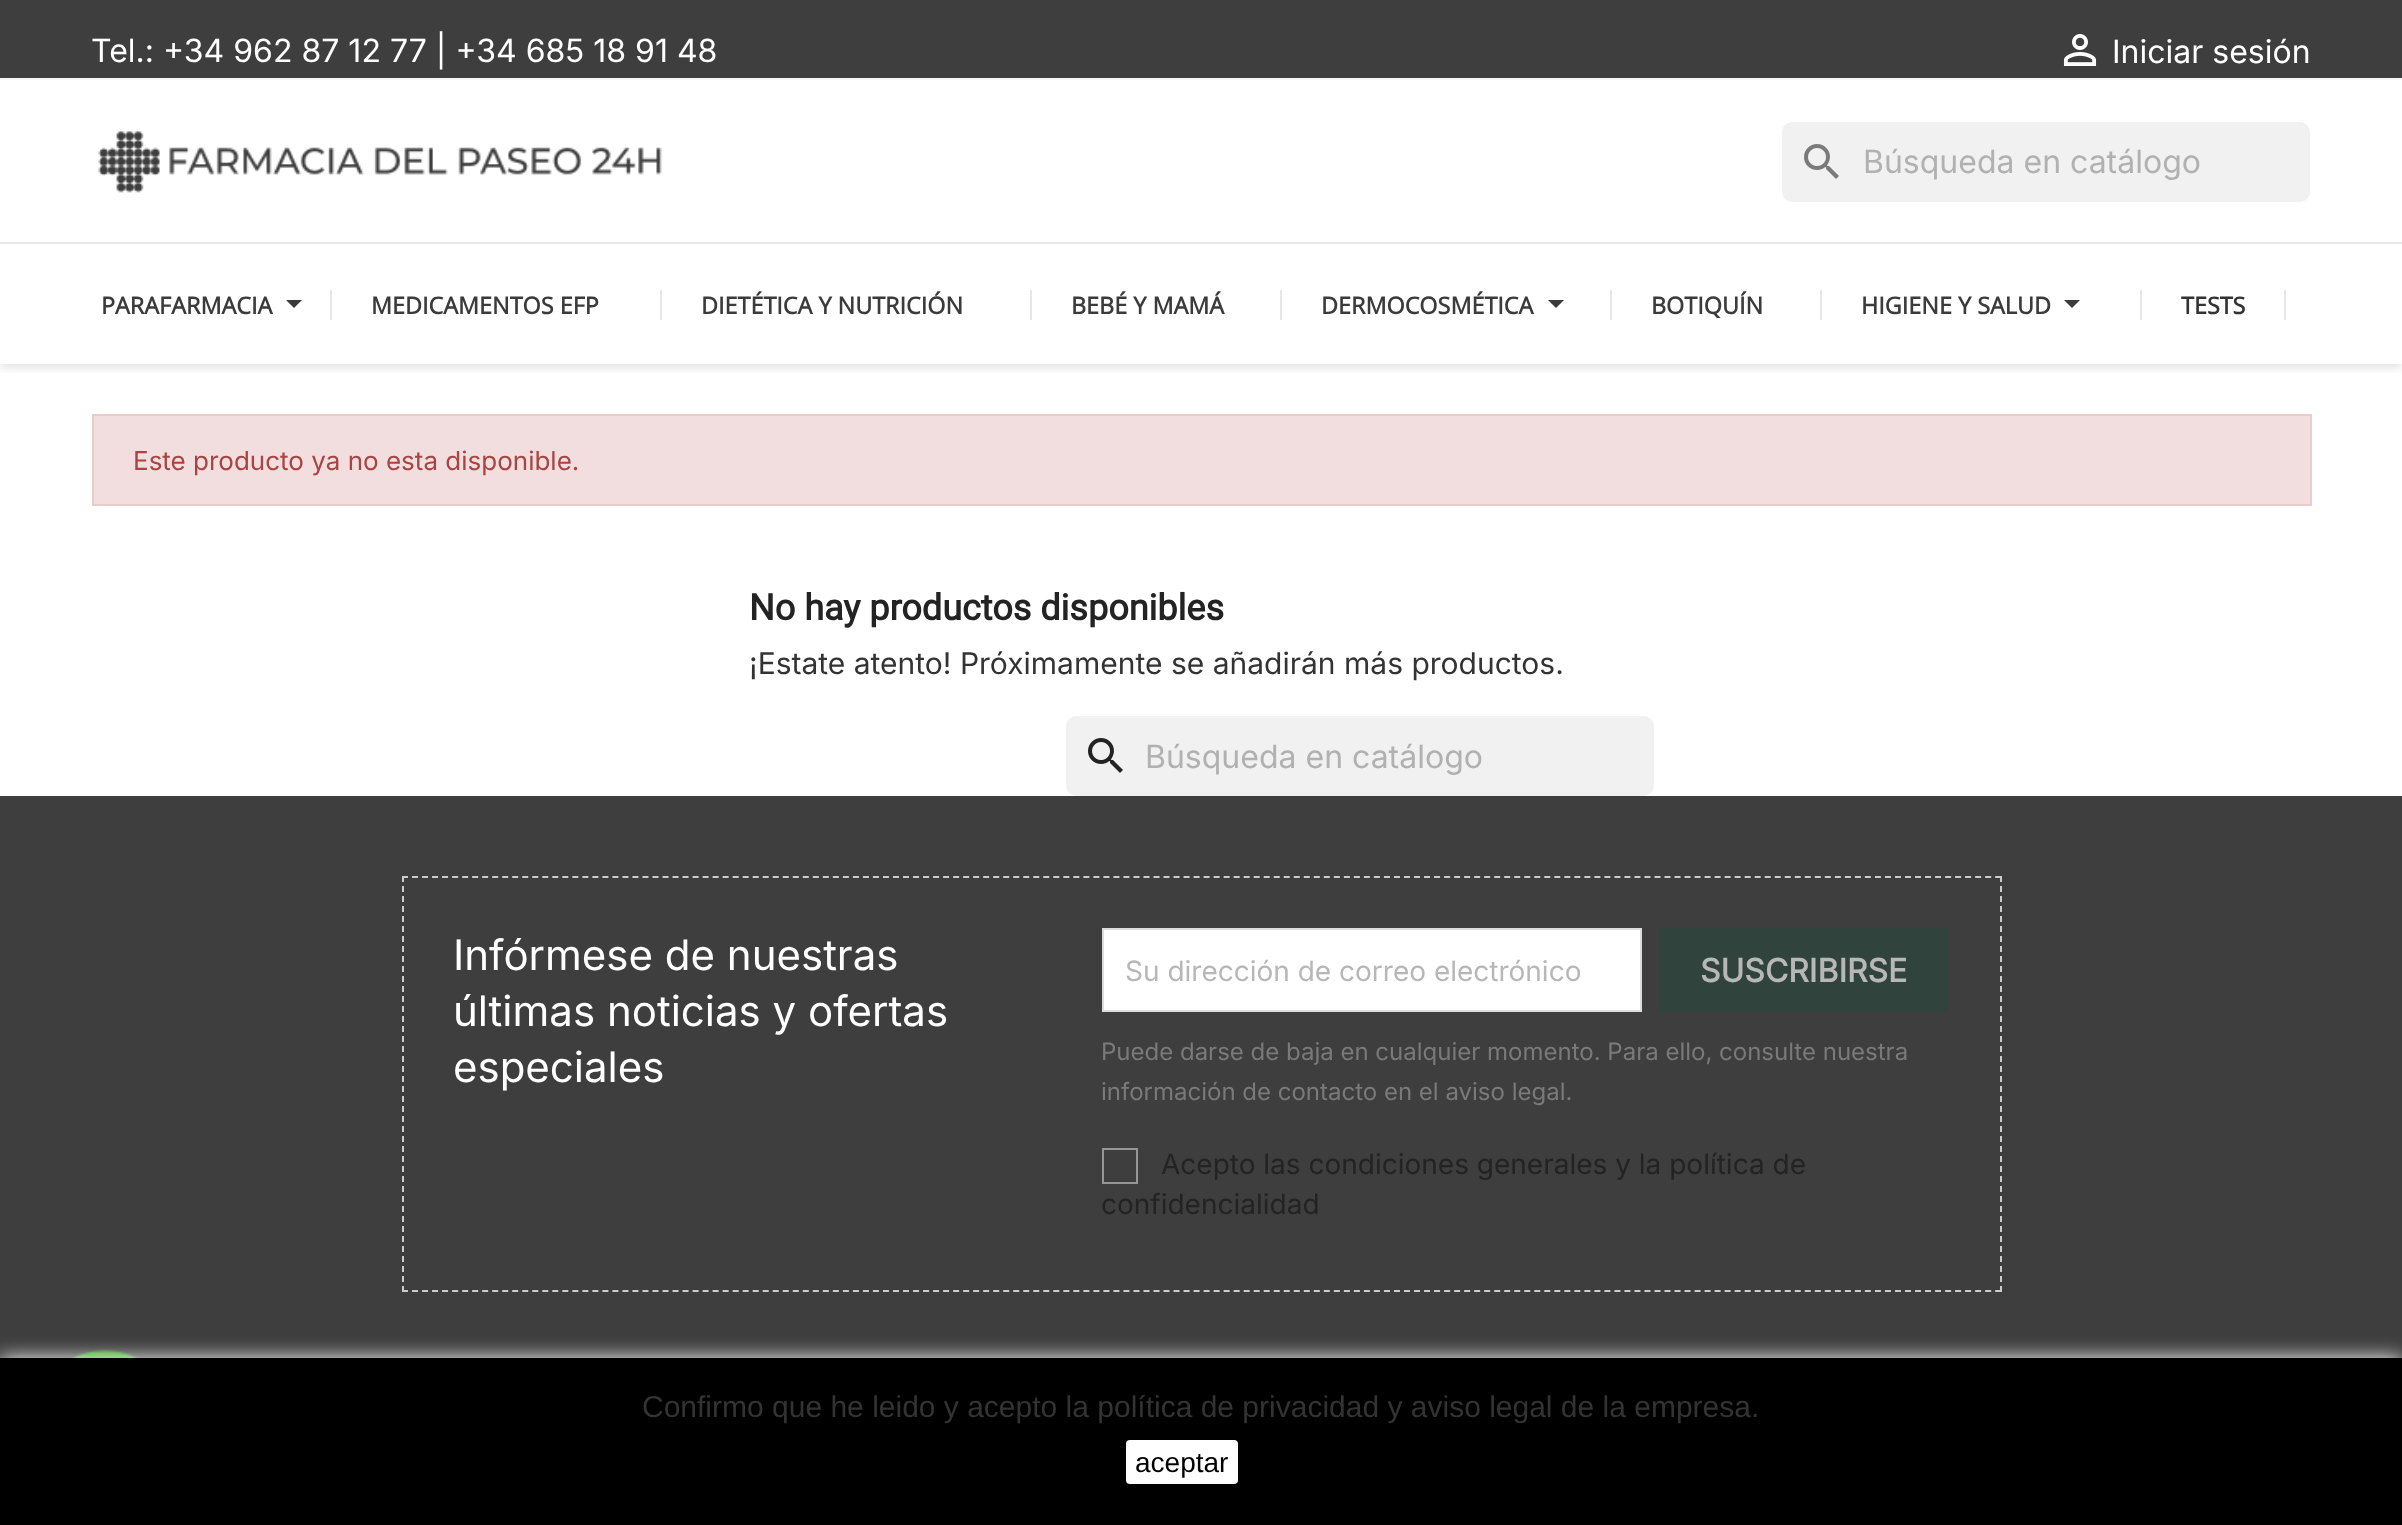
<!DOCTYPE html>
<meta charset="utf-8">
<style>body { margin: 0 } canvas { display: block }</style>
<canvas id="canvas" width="2402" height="1525"></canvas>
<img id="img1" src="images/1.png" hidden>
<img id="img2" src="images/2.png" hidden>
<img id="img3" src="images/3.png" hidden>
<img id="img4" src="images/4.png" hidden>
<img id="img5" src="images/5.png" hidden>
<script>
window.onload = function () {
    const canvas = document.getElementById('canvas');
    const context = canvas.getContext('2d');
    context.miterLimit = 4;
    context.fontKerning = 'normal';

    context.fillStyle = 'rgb(255, 255, 255)';
    context.fillRect(0, 0, 2402, 1525);
    context.save();
    context.beginPath();
    context.rect(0, 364, 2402, 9);
    context.clip();
    context.fillStyle = 'rgba(0, 0, 0, 0.11)';
    context.filter = 'blur(5px)';
    context.beginPath();
    context.rect(0, 4, 2402, 364);
    context.fill();
    context.filter = 'none';
    context.restore();
    context.fillStyle = 'rgb(63, 62, 63)';
    context.fillRect(0, 0, 2402, 78);
    context.fillStyle = 'rgb(246, 246, 246)';
    context.fillRect(0, 78, 2402, 2);
    context.drawImage(document.getElementById('img1'), 2063, 34, 34, 32);
    context.drawImage(document.getElementById('img2'), 98, 131, 564, 62);
    context.fillStyle = 'rgb(241, 241, 241)';
    context.beginPath();
    context.roundRect(1782, 122, 528, 80, 10);
    context.fill();
    context.drawImage(document.getElementById('img3'), 1804, 144, 35, 35);
    context.fillStyle = 'rgb(231, 231, 231)';
    context.fillRect(0, 242, 2402, 2);
    context.fillStyle = 'rgb(59, 59, 59)';
    context.beginPath();
    context.moveTo(286, 300);
    context.lineTo(302, 300);
    context.lineTo(294, 308);
    context.closePath();
    context.fill();
    context.fillStyle = 'rgb(231, 231, 231)';
    context.fillRect(330, 290, 2, 30);
    context.fillRect(660, 290, 2, 30);
    context.fillRect(1030, 290, 2, 30);
    context.fillRect(1280, 290, 2, 30);
    context.fillStyle = 'rgb(59, 59, 59)';
    context.beginPath();
    context.moveTo(1548, 300);
    context.lineTo(1564, 300);
    context.lineTo(1556, 308);
    context.closePath();
    context.fill();
    context.fillStyle = 'rgb(231, 231, 231)';
    context.fillRect(1610, 290, 2, 30);
    context.fillRect(1820, 290, 2, 30);
    context.fillStyle = 'rgb(59, 59, 59)';
    context.beginPath();
    context.moveTo(2064, 300);
    context.lineTo(2080, 300);
    context.lineTo(2072, 308);
    context.closePath();
    context.fill();
    context.fillStyle = 'rgb(231, 231, 231)';
    context.fillRect(2140, 290, 2, 30);
    context.fillRect(2284, 290, 2, 30);
    context.fillStyle = 'rgb(242, 222, 222)';
    context.beginPath();
    context.rect(93, 415, 2218, 90);
    context.fill();
    context.strokeStyle = 'rgb(235, 204, 204)';
    context.lineWidth = 2;
    context.stroke();
    context.fillStyle = 'rgb(241, 241, 241)';
    context.beginPath();
    context.roundRect(1066, 716, 588, 80, 10);
    context.fill();
    context.drawImage(document.getElementById('img4'), 1088, 738, 35, 35);
    context.fillStyle = 'rgb(63, 62, 63)';
    context.fillRect(0, 796, 2402, 562);
    context.beginPath();
    context.moveTo(402, 877);
    context.lineTo(2002, 877);
    context.strokeStyle = 'rgb(204, 204, 204)';
    context.setLineDash([6, 4.02]);
    context.stroke();
    context.beginPath();
    context.moveTo(2001, 876);
    context.lineTo(2001, 1292);
    context.setLineDash([6, 4]);
    context.stroke();
    context.beginPath();
    context.moveTo(402, 1291);
    context.lineTo(2002, 1291);
    context.setLineDash([6, 4.02]);
    context.stroke();
    context.beginPath();
    context.moveTo(403, 876);
    context.lineTo(403, 1292);
    context.setLineDash([6, 4]);
    context.stroke();
    context.fillStyle = 'rgb(255, 255, 255)';
    context.beginPath();
    context.rect(1103, 929, 538, 82);
    context.fill();
    context.strokeStyle = 'rgb(221, 221, 221)';
    context.setLineDash([]);
    context.stroke();
    context.fillStyle = 'rgb(48, 67, 60)';
    context.fillRect(1658, 928, 290, 84);
    context.strokeStyle = 'rgb(151, 151, 151)';
    context.strokeRect(1103, 1149, 34, 34);
    context.drawImage(document.getElementById('img5'), 69, 1349, 72, 9);
    context.fillStyle = 'rgb(255, 255, 255)';
    context.filter = 'blur(10px)';
    context.beginPath();
    context.rect(0, 1358, 2402, 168);
    context.fill();
    context.filter = 'none';
    context.fillStyle = 'rgb(0, 0, 0)';
    context.fillRect(0, 1358, 2402, 167);
    context.fillStyle = 'rgb(255, 255, 255)';
    context.beginPath();
    context.roundRect(1126, 1440, 112, 44, 4);
    context.fill();
    context.font = '32px Inter';
    context.fillText('Tel.: +34 962 87 12 77 | +34 685 18 91 48', 91, 62);
    context.fillText('Iniciar sesión', 2112, 63);
    context.fillStyle = 'rgb(177, 177, 177)';
    context.fillText('Búsqueda en catálogo', 1863, 173);
    context.font = 'bold 23.4px Open Sans';
    context.fillStyle = 'rgb(59, 59, 59)';
    context.fillText('PARAFARMACIA', 101, 314);
    context.fillText('MEDICAMENTOS EFP', 371, 314);
    context.fillText('DIETÉTICA Y NUTRICIÓN', 701, 314);
    context.fillText('BEBÉ Y MAMÁ', 1071, 314);
    context.fillText('DERMOCOSMÉTICA', 1321, 314);
    context.fillText('BOTIQUÍN', 1651, 314);
    context.fillText('HIGIENE Y SALUD', 1861, 314);
    context.fillStyle = 'rgb(51, 51, 51)';
    context.fillText('TESTS', 2181, 314);
    context.font = '26px Inter';
    context.fillStyle = 'rgb(169, 68, 66)';
    context.fillText('Este producto ya no esta disponible.', 133, 470);
    context.font = 'bold 36px Roboto';
    context.fillStyle = 'rgb(35, 35, 35)';
    context.fillText('No hay productos disponibles', 749, 620);
    context.font = '30px Inter';
    context.fillStyle = 'rgb(51, 51, 51)';
    context.fillText('¡Estate atento! Próximamente se añadirán más productos.', 749, 674);
    context.font = '32px Inter';
    context.fillStyle = 'rgb(177, 177, 177)';
    context.fillText('Búsqueda en catálogo', 1145, 768);
    context.font = '42px Inter';
    context.fillStyle = 'rgb(255, 255, 255)';
    context.fillText('Infórmese de nuestras', 453, 970);
    context.fillText('últimas noticias y ofertas', 453, 1026);
    context.fillText('especiales', 453, 1082);
    context.font = '28px Inter';
    context.fillStyle = 'rgb(183, 183, 183)';
    context.fillText('Su dirección de correo electrónico', 1125, 981);
    context.font = 'bold 32px Inter';
    context.fillText('SUSCRIBIRSE', 1700, 982);
    context.font = '24px Inter';
    context.fillStyle = 'rgb(122, 122, 122)';
    context.fillText('Puede darse de baja en cualquier momento. Para ello, consulte nuestra', 1101, 1060);
    context.fillText('información de contacto en el aviso legal.', 1101, 1100);
    context.font = '28px Inter';
    context.fillStyle = 'rgb(35, 35, 35)';
    context.fillText('Acepto las condiciones generales y la política de', 1161, 1174);
    context.fillText('confidencialidad', 1101, 1214);
    context.font = '30px Liberation Sans';
    context.fillStyle = 'rgb(51, 51, 51)';
    context.fillText('Confirmo que he leido y acepto la política de privacidad y aviso legal de la empresa.', 642, 1417);
    context.font = '28px Liberation Sans';
    context.fillStyle = 'rgb(0, 0, 0)';
    context.fillText('aceptar', 1135, 1472);
};
</script>
